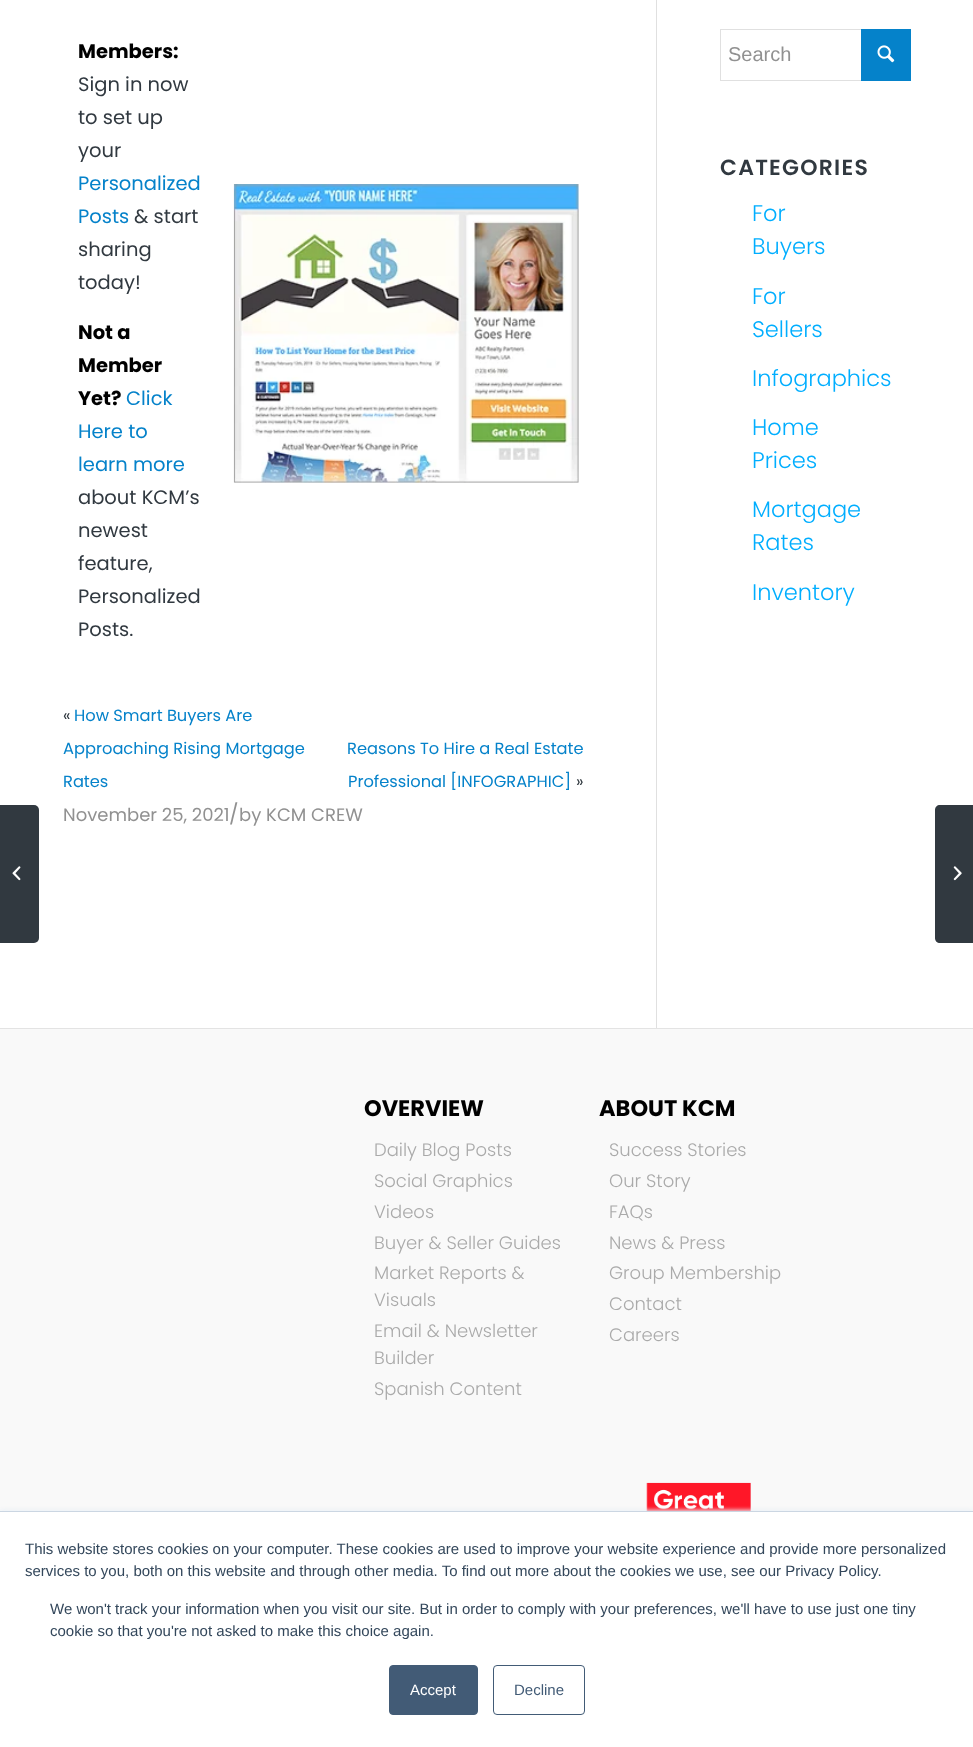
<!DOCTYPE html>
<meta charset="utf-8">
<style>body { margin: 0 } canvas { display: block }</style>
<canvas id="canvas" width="973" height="1747"></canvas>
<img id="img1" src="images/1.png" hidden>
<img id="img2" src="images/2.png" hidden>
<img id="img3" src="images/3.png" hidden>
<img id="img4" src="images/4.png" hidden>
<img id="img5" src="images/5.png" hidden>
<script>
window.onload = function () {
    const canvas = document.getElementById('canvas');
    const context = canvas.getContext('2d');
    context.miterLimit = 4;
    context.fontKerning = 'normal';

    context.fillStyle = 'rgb(255, 255, 255)';
    context.fillRect(0, 0, 973, 1747);
    context.fillStyle = 'rgb(49, 57, 64)';
    context.beginPath();
    context.roundRect(0, 805, 39, 138, [0, 5, 5, 0]);
    context.fill();
    context.drawImage(document.getElementById('img1'), 12, 866, 9, 15);
    context.drawImage(document.getElementById('img2'), 233, 184, 346, 299);
    context.fillStyle = 'rgb(224, 224, 224)';
    context.fillRect(656, 0, 1, 1028);
    context.strokeStyle = 'rgb(224, 224, 224)';
    context.strokeRect(720.5, 29.5, 190, 51);
    context.fillStyle = 'rgb(5, 130, 202)';
    context.fillRect(861, 29, 50, 52);
    context.drawImage(document.getElementById('img3'), 877, 45, 18, 18);
    context.fillStyle = 'rgb(249, 249, 249)';
    context.fillRect(0, 1029, 973, 482);
    context.fillStyle = 'rgb(227, 227, 227)';
    context.fillRect(0, 1028, 973, 1);
    context.drawImage(document.getElementById('img4'), 646, 1482, 105, 29);
    context.fillStyle = 'rgb(49, 57, 64)';
    context.beginPath();
    context.moveTo(940, 805);
    context.lineTo(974, 805);
    context.lineTo(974, 943);
    context.lineTo(940, 943);
    context.bezierCurveTo(937, 943, 935, 941, 935, 938);
    context.lineTo(935, 810);
    context.bezierCurveTo(935, 807, 937, 805, 940, 805);
    context.closePath();
    context.fill();
    context.drawImage(document.getElementById('img5'), 953, 866, 9, 15);
    context.fillStyle = 'rgb(234, 240, 246)';
    context.filter = 'blur(2px)';
    context.beginPath();
    context.rect(0, 1510, 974, 236);
    context.fill();
    context.filter = 'none';
    context.fillStyle = 'rgb(255, 255, 255)';
    context.fillRect(0, 1512, 973, 235);
    context.fillStyle = 'rgb(203, 214, 226)';
    context.fillRect(0, 1511, 973, 1);
    context.fillStyle = 'rgb(66, 91, 118)';
    context.beginPath();
    context.roundRect(389.5, 1665.5, 88, 49, 3.5);
    context.fill();
    context.strokeStyle = 'rgb(66, 91, 118)';
    context.stroke();
    context.beginPath();
    context.roundRect(493.5, 1665.5, 91, 49, 3.5);
    context.stroke();
    context.font = 'bold 19.5px Poppins';
    context.fillStyle = 'rgb(0, 0, 0)';
    context.fillText('Members:', 78, 58);
    context.font = '19.5px Poppins';
    context.fillStyle = 'rgb(49, 57, 64)';
    context.fillText('Sign in now', 78, 91);
    context.fillText('to set up', 78, 124);
    context.fillText('your', 78, 157);
    context.fillStyle = 'rgb(5, 130, 202)';
    context.fillText('Personalized', 78, 190);
    context.fillText('Posts', 78, 223);
    context.fillStyle = 'rgb(49, 57, 64)';
    context.fillText('& start', 134, 223);
    context.fillText('sharing', 78, 256);
    context.fillText('today!', 78, 289);
    context.font = 'bold 19.5px Poppins';
    context.fillStyle = 'rgb(0, 0, 0)';
    context.fillText('Not a', 78, 339);
    context.fillText('Member', 78, 372);
    context.fillText('Yet?', 78, 405);
    context.font = '19.5px Poppins';
    context.fillStyle = 'rgb(5, 130, 202)';
    context.fillText('Click', 126, 405);
    context.fillText('Here to', 78, 438);
    context.fillText('learn more', 78, 471);
    context.fillStyle = 'rgb(49, 57, 64)';
    context.fillText('about KCM’s', 78, 504);
    context.fillText('newest', 78, 537);
    context.fillText('feature,', 78, 570);
    context.fillText('Personalized', 78, 603);
    context.fillText('Posts.', 78, 636);
    context.font = '16.25px Poppins';
    context.fillText('«', 63, 721);
    context.fillStyle = 'rgb(5, 130, 202)';
    context.fillText('How Smart Buyers Are', 74, 721);
    context.fillText('Approaching Rising Mortgage', 63, 754);
    context.fillText('Rates', 63, 787);
    context.fillText('Reasons To Hire a Real Estate', 347, 754);
    context.fillText('Professional [INFOGRAPHIC]', 348, 787);
    context.fillStyle = 'rgb(49, 57, 64)';
    context.fillText('»', 576, 787);
    context.font = '18px Poppins';
    context.fillStyle = 'rgb(145, 145, 145)';
    context.fillText('November 25, 2021', 63, 821);
    context.font = '20px Poppins';
    context.fillText('/', 229, 821);
    context.font = '18px Poppins';
    context.fillText('by KCM CREW', 239, 821);
    context.font = '20px Liberation Sans';
    context.fillText('Search', 728, 61);
    context.letterSpacing = '1.25px';
    context.font = '600 22px Poppins';
    context.fillStyle = 'rgb(49, 57, 64)';
    context.fillText('CATEGORIES', 720, 175);
    context.letterSpacing = '0px';
    context.font = '300 22.5px Poppins';
    context.fillStyle = 'rgb(0, 174, 255)';
    context.fillText('For', 752, 221);
    context.fillText('Buyers', 752, 254);
    context.fillText('For', 752, 304);
    context.fillText('Sellers', 752, 337);
    context.fillText('Infographics', 752, 386);
    context.fillText('Home', 752, 435);
    context.fillText('Prices', 752, 468);
    context.fillText('Mortgage', 752, 517);
    context.fillText('Rates', 752, 550);
    context.fillText('Inventory', 752, 600);
    context.font = 'bold 22.5px Poppins';
    context.fillStyle = 'rgb(0, 0, 0)';
    context.fillText('OVERVIEW', 364, 1116);
    context.font = '300 18px Poppins';
    context.fillStyle = 'rgb(170, 170, 170)';
    context.fillText('Daily Blog Posts', 374, 1156);
    context.fillText('Social Graphics', 374, 1187);
    context.fillText('Videos', 374, 1218);
    context.fillText('Buyer & Seller Guides', 374, 1249);
    context.fillText('Market Reports &', 374, 1279);
    context.fillText('Visuals', 374, 1306);
    context.fillText('Email & Newsletter', 374, 1337);
    context.fillText('Builder', 374, 1364);
    context.fillText('Spanish Content', 374, 1395);
    context.font = 'bold 22.5px Poppins';
    context.fillStyle = 'rgb(0, 0, 0)';
    context.fillText('ABOUT KCM', 599, 1116);
    context.font = '300 18px Poppins';
    context.fillStyle = 'rgb(170, 170, 170)';
    context.fillText('Success Stories', 609, 1156);
    context.fillText('Our Story', 609, 1187);
    context.fillText('FAQs', 609, 1218);
    context.fillText('News & Press', 609, 1249);
    context.fillText('Group Membership', 609, 1279);
    context.fillText('Contact', 609, 1310);
    context.fillText('Careers', 609, 1341);
    context.font = '15px Liberation Sans';
    context.fillStyle = 'rgb(51, 71, 91)';
    context.fillText('This website stores cookies on your computer. These cookies are used to improve your website experience and provide more personalized', 25, 1554);
    context.fillText('services to you, both on this website and through other media. To find out more about the cookies we use, see our Privacy Policy.', 25, 1576);
    context.fillText('We won\'t track your information when you visit our site. But in order to comply with your preferences, we\'ll have to use just one tiny', 50, 1614);
    context.fillText('cookie so that you\'re not asked to make this choice again.', 50, 1636);
    context.fillStyle = 'rgb(255, 255, 255)';
    context.fillText('Accept', 410, 1695);
    context.fillStyle = 'rgb(66, 91, 118)';
    context.fillText('Decline', 514, 1695);
};
</script>
